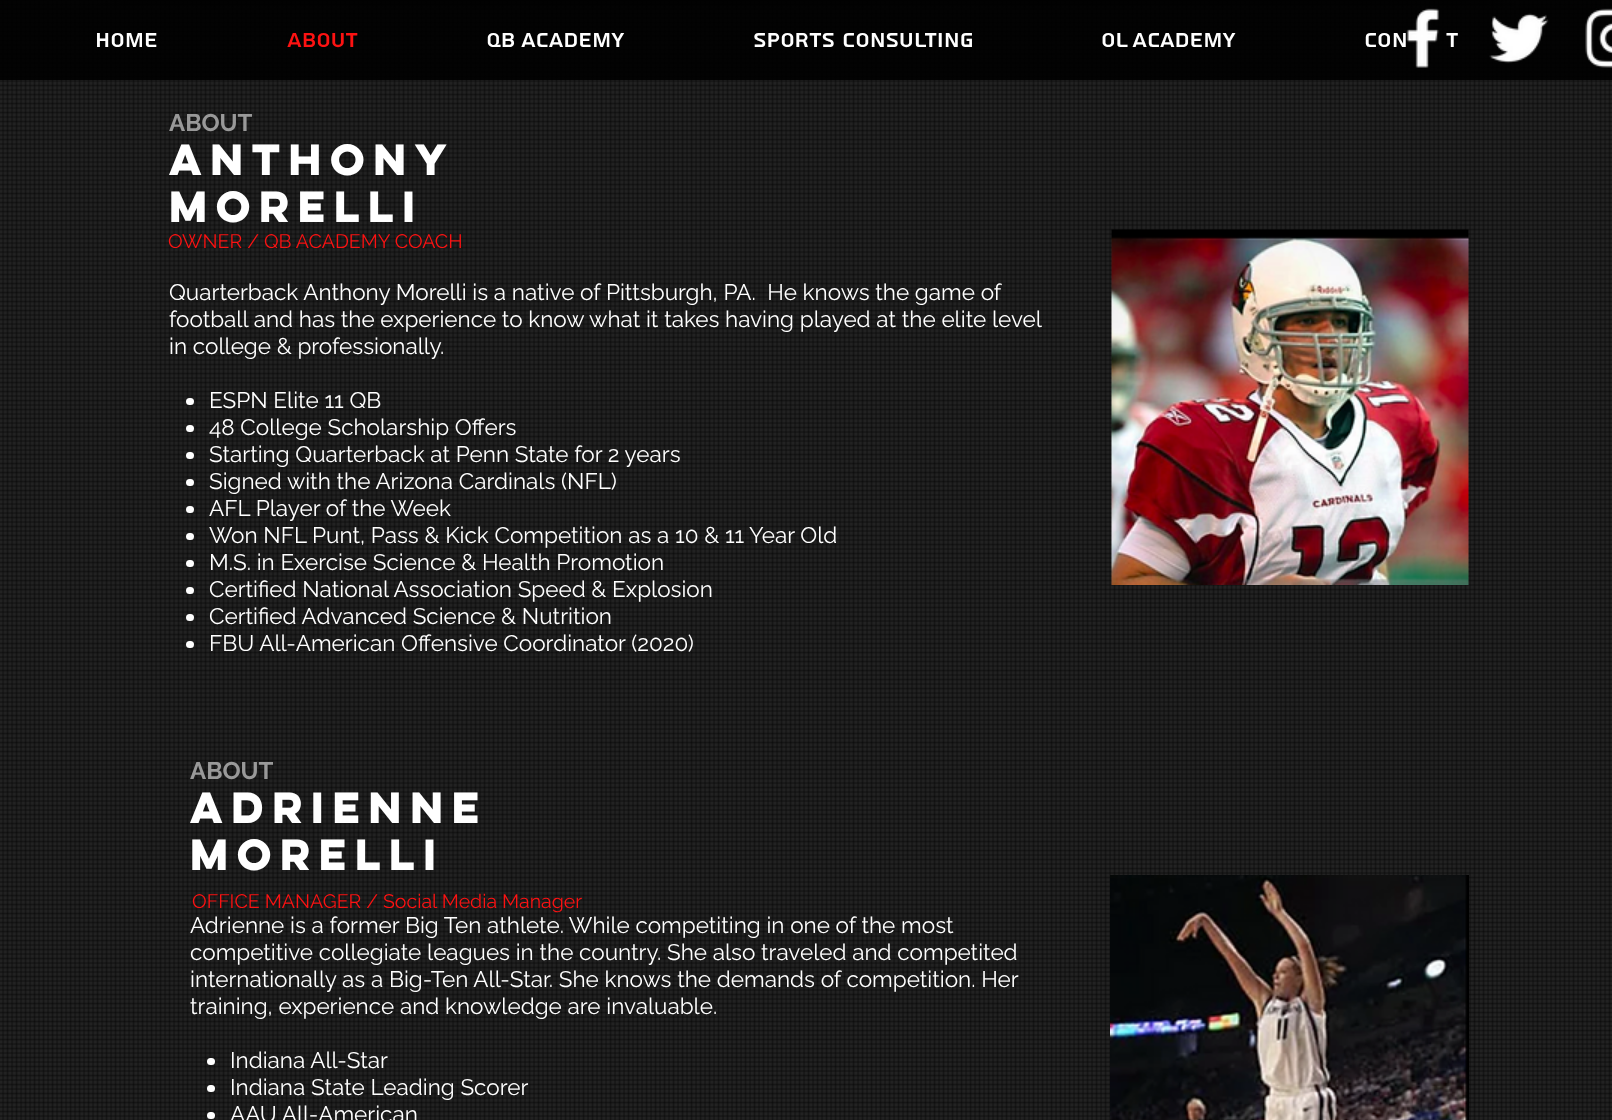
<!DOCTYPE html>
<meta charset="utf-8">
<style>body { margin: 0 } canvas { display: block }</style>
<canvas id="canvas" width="1612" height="1120"></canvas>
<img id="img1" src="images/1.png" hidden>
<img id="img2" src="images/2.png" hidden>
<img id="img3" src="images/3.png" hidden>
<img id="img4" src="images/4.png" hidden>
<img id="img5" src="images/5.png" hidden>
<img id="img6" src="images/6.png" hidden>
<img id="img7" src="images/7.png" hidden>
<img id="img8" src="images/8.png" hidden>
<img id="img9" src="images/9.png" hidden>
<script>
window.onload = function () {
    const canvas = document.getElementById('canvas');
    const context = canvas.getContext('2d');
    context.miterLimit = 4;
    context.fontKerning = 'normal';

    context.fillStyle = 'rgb(34, 34, 34)';
    context.fillRect(0, 0, 1612, 1120);
    context.drawImage(document.getElementById('img1'), 0, 0, 1612, 1120);
    context.drawImage(document.getElementById('img2'), 99, 0, 123, 8);
    context.drawImage(document.getElementById('img3'), 222, 0, 1171, 8);
    context.drawImage(document.getElementById('img4'), 1392, 0, 122, 8);
    context.fillStyle = 'rgba(0, 0, 0, 0.89)';
    context.fillRect(0, 0, 1612, 80);
    context.drawImage(document.getElementById('img5'), 1406, 8, 33, 60);
    context.drawImage(document.getElementById('img6'), 1489, 13, 60, 51);
    context.drawImage(document.getElementById('img7'), 1585, 8, 27, 60);
    context.drawImage(document.getElementById('img8'), 1111, 229, 358, 356);
    context.fillStyle = 'rgb(255, 255, 255)';
    context.beginPath();
    context.roundRect(186, 398, 8, 7, 3.5);
    context.fill();
    context.beginPath();
    context.roundRect(186, 425, 8, 7, 3.5);
    context.fill();
    context.beginPath();
    context.roundRect(186, 452, 8, 7, 3.5);
    context.fill();
    context.beginPath();
    context.roundRect(186, 479, 8, 7, 3.5);
    context.fill();
    context.beginPath();
    context.roundRect(186, 506, 8, 7, 3.5);
    context.fill();
    context.beginPath();
    context.roundRect(186, 533, 8, 7, 3.5);
    context.fill();
    context.beginPath();
    context.roundRect(186, 560, 8, 7, 3.5);
    context.fill();
    context.beginPath();
    context.roundRect(186, 587, 8, 7, 3.5);
    context.fill();
    context.beginPath();
    context.roundRect(186, 614, 8, 7, 3.5);
    context.fill();
    context.beginPath();
    context.roundRect(186, 641, 8, 7, 3.5);
    context.fill();
    context.drawImage(document.getElementById('img9'), 1110, 875, 359, 245);
    context.beginPath();
    context.roundRect(207, 1058, 8, 7, 3.5);
    context.fill();
    context.beginPath();
    context.roundRect(207, 1085, 8, 7, 3.5);
    context.fill();
    context.beginPath();
    context.roundRect(207, 1112, 8, 7, 3.5);
    context.fill();
    context.font = '500 27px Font';
    context.fillText('Home', 95, 47);
    context.fillStyle = 'rgb(252, 18, 18)';
    context.fillText('About', 287, 47);
    context.fillStyle = 'rgb(255, 255, 255)';
    context.fillText('QB Academy', 486, 47);
    context.fillText('Sports Consulting', 753, 47);
    context.fillText('OL Academy', 1101, 47);
    context.fillText('Con', 1364, 47);
    context.fillText('t', 1446, 47);
    context.font = 'bold 24px Raleway';
    context.fillStyle = 'rgb(153, 153, 153)';
    context.fillText('ABOUT', 169, 131);
    context.font = 'bold 39px "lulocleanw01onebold"';
    context.fillStyle = 'rgb(255, 255, 255)';
    context.fillText('ANTHONY', 169, 175);
    context.fillText('MORELLI', 169, 222);
    context.font = '19.5px Raleway';
    context.fillStyle = 'rgb(252, 18, 18)';
    context.fillText('OWNER / QB ACADEMY COACH', 168, 248);
    context.font = '22.5px Raleway';
    context.fillStyle = 'rgb(255, 255, 255)';
    context.fillText('Quarterback Anthony Morelli is a native of Pittsburgh, PA.  He knows the game of', 169, 300);
    context.fillText('football and has the experience to know what it takes having played at the elite level', 169, 327);
    context.fillText('in college & professionally.', 169, 354);
    context.fillText('ESPN Elite 11 QB', 209, 408);
    context.fillText('48 College Scholarship Offers', 209, 435);
    context.fillText('Starting Quarterback at Penn State for 2 years', 209, 462);
    context.fillText('Signed with the Arizona Cardinals (NFL)', 209, 489);
    context.fillText('AFL Player of the Week', 209, 516);
    context.fillText('Won NFL Punt, Pass & Kick Competition as a 10 & 11 Year Old', 209, 543);
    context.fillText('M.S. in Exercise Science & Health Promotion', 209, 570);
    context.fillText('Certified National Association Speed & Explosion', 209, 597);
    context.fillText('Certified Advanced Science & Nutrition', 209, 624);
    context.fillText('FBU All-American Offensive Coordinator (2020)', 209, 651);
    context.font = 'bold 24px Raleway';
    context.fillStyle = 'rgb(153, 153, 153)';
    context.fillText('ABOUT', 190, 779);
    context.font = 'bold 39px "lulocleanw01onebold"';
    context.fillStyle = 'rgb(255, 255, 255)';
    context.fillText('ADRIENNE', 190, 823);
    context.fillText('MORELLI', 190, 870);
    context.font = '19.5px Raleway';
    context.fillStyle = 'rgb(252, 18, 18)';
    context.fillText('OFFICE MANAGER / Social Media Manager', 192, 908);
    context.font = '22.5px Raleway';
    context.fillStyle = 'rgb(255, 255, 255)';
    context.fillText('Adrienne is a former Big Ten athlete. While competiting in one of the most', 190, 933);
    context.fillText('competitive collegiate leagues in the country. She also traveled and competited', 190, 960);
    context.fillText('internationally as a Big-Ten All-Star. She knows the demands of competition. Her', 190, 987);
    context.fillText('training, experience and knowledge are invaluable.', 190, 1014);
    context.fillText('Indiana All-Star', 230, 1068);
    context.fillText('Indiana State Leading Scorer', 230, 1095);
    context.fillText('AAU All-American', 230, 1122);
};
</script>
